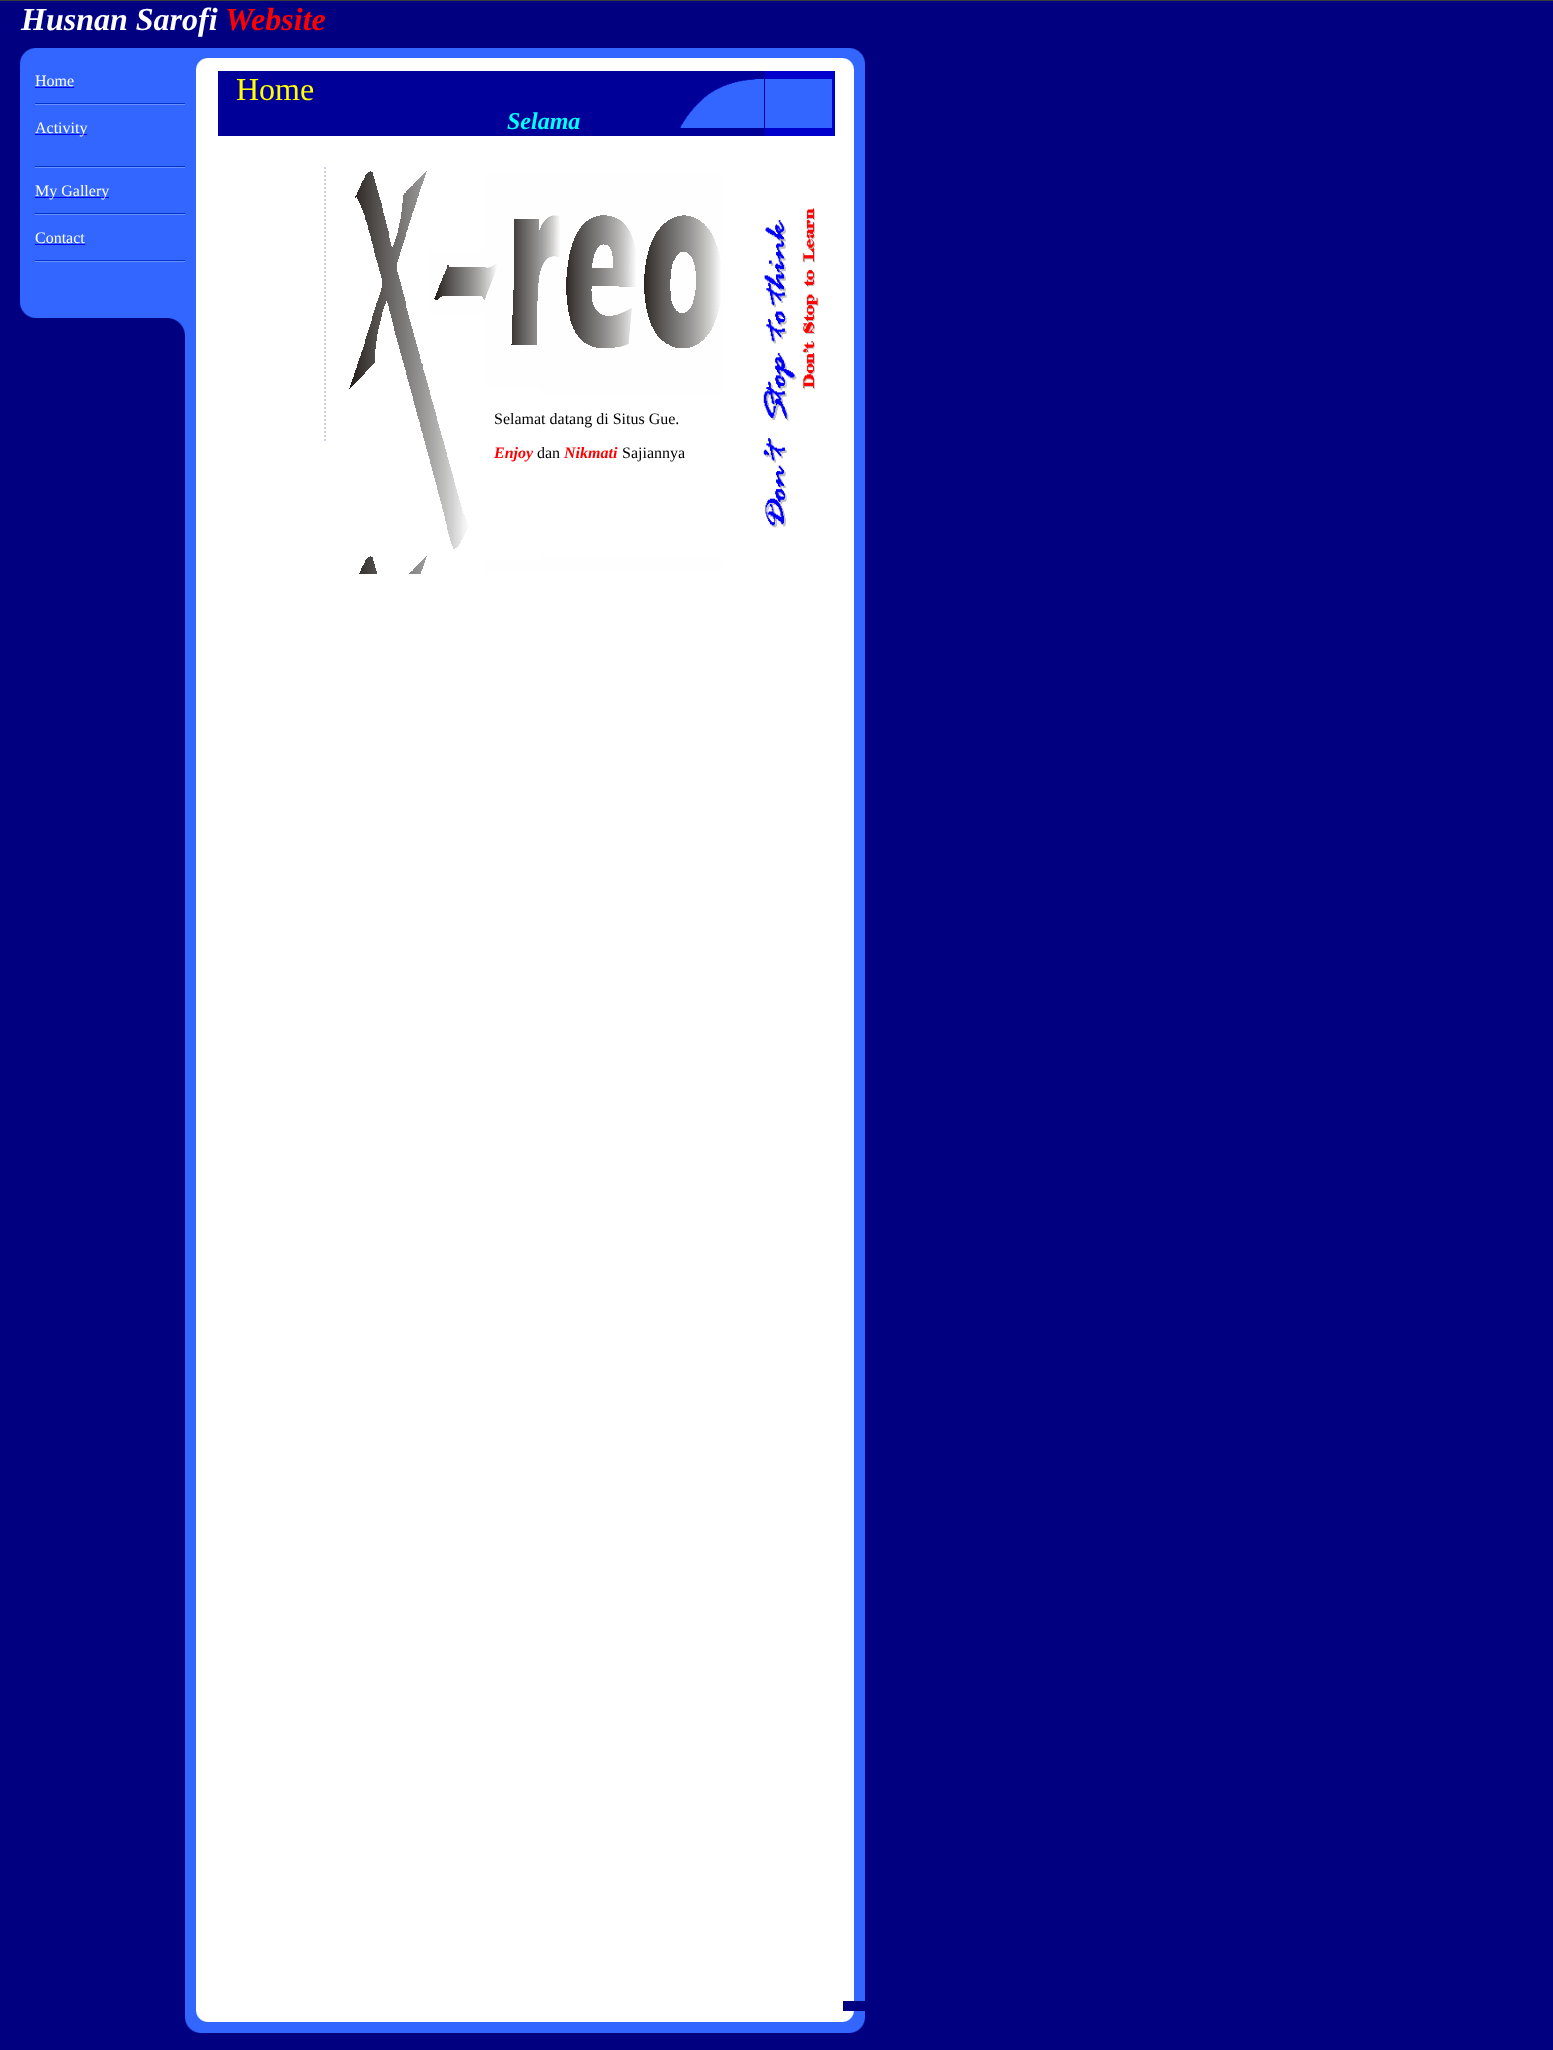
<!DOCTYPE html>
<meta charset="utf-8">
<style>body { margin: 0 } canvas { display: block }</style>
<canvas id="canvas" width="1553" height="2050"></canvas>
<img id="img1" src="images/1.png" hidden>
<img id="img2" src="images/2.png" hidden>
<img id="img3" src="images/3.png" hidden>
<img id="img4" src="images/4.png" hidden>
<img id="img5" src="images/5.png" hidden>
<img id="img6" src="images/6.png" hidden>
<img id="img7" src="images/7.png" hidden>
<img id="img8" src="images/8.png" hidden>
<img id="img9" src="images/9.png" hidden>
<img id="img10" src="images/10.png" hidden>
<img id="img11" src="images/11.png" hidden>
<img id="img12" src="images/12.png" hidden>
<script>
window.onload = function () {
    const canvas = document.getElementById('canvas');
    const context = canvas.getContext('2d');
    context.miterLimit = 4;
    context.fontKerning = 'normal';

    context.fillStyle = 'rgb(255, 255, 255)';
    context.fillRect(0, 0, 1553, 2050);
    context.fillStyle = 'rgb(57, 57, 57)';
    context.fillRect(0, 0, 1553, 1);
    context.fillStyle = 'rgb(0, 0, 128)';
    context.fillRect(0, 1, 843, 68);
    context.drawImage(document.getElementById('img1'), 19, 48, 824, 21);
    context.fillRect(843, 1, 710, 2049);
    context.drawImage(document.getElementById('img2'), 843, 48, 22, 1953);
    context.drawImage(document.getElementById('img3'), 0, 69, 197, 1942);
    context.fillStyle = 'rgb(51, 102, 255)';
    context.fillRect(20, 69, 165, 249);
    context.fillStyle = 'rgb(0, 0, 238)';
    context.fillRect(35, 87, 39, 1);
    context.drawImage(document.getElementById('img4'), 35, 103, 150, 2);
    context.fillRect(35, 134, 52, 1);
    context.drawImage(document.getElementById('img4'), 35, 166, 150, 2);
    context.fillRect(35, 197, 74, 1);
    context.drawImage(document.getElementById('img4'), 35, 213, 150, 2);
    context.fillRect(35, 244, 50, 1);
    context.drawImage(document.getElementById('img4'), 35, 260, 150, 2);
    context.drawImage(document.getElementById('img5'), 20, 303, 15, 15);
    context.drawImage(document.getElementById('img6'), 168, 318, 17, 17);
    context.fillStyle = 'rgb(0, 0, 153)';
    context.fillRect(218, 71, 547, 65);
    context.drawImage(document.getElementById('img7'), 680, 79, 84, 49);
    context.fillStyle = 'rgb(0, 0, 204)';
    context.fillRect(765, 71, 70, 65);
    context.fillStyle = 'rgb(51, 102, 255)';
    context.fillRect(765, 79, 67, 49);
    context.drawImage(document.getElementById('img8'), 324, 167, 2, 274);
    context.drawImage(document.getElementById('img9'), 349, 171, 372, 403);
    context.drawImage(document.getElementById('img10'), 763, 208, 56, 320);
    context.drawImage(document.getElementById('img11'), 0, 2011, 843, 39);
    context.drawImage(document.getElementById('img12'), 843, 2011, 22, 22);
    context.font = 'italic bold 32px Liberation Serif';
    context.fillStyle = 'rgb(255, 255, 255)';
    context.fillText('Husnan Sarofi', 21, 30);
    context.fillStyle = 'rgb(255, 0, 0)';
    context.fillText('Website', 225, 30);
    context.font = '16px Liberation Serif';
    context.fillStyle = 'rgb(255, 255, 255)';
    context.fillText('Home', 35, 86);
    context.fillText('Activity', 35, 133);
    context.fillText('My Gallery', 35, 196);
    context.fillText('Contact', 35, 243);
    context.font = '32px Liberation Serif';
    context.fillStyle = 'rgb(255, 255, 0)';
    context.fillText('Home', 236, 100);
    context.font = 'italic bold 24px Liberation Serif';
    context.fillStyle = 'rgb(0, 255, 255)';
    context.fillText('Selama', 507, 129);
    context.font = '16px Liberation Serif';
    context.fillStyle = 'rgb(0, 0, 0)';
    context.fillText('Selamat datang di Situs Gue.', 494, 424);
    context.font = 'italic bold 16px Liberation Serif';
    context.fillStyle = 'rgb(255, 0, 0)';
    context.fillText('Enjoy', 494, 458);
    context.font = '16px Liberation Serif';
    context.fillStyle = 'rgb(0, 0, 0)';
    context.fillText('dan', 537, 458);
    context.font = 'italic bold 16px Liberation Serif';
    context.fillStyle = 'rgb(255, 0, 0)';
    context.fillText('Nikmati', 564, 458);
    context.font = '16px Liberation Serif';
    context.fillStyle = 'rgb(0, 0, 0)';
    context.fillText('Sajiannya', 622, 458);
};
</script>
